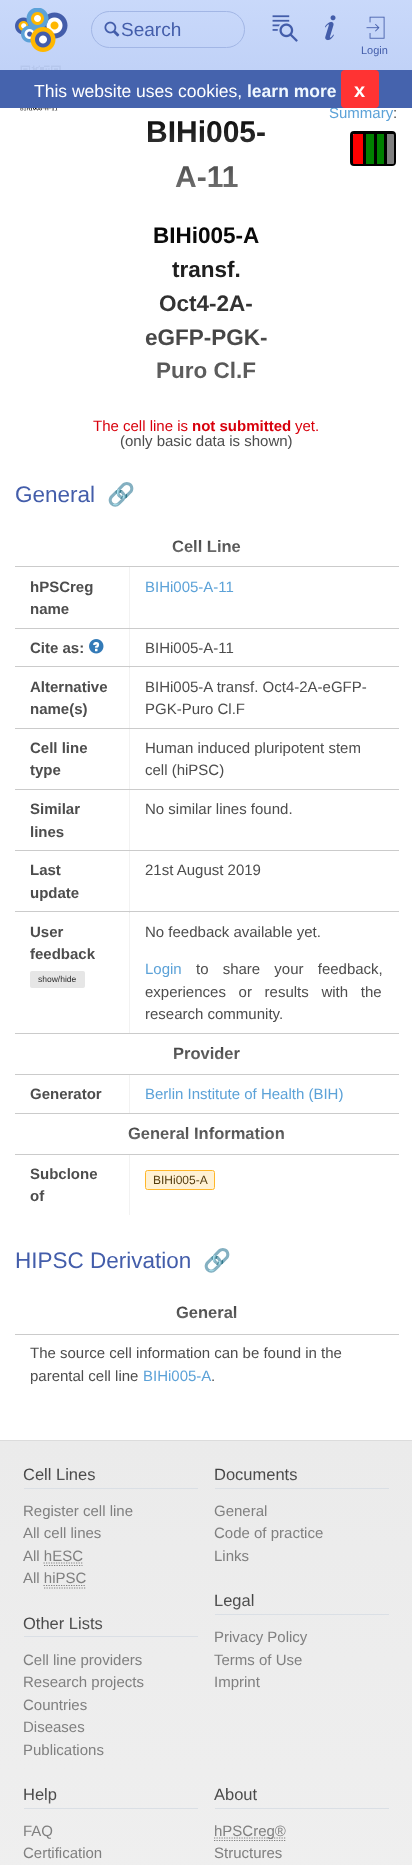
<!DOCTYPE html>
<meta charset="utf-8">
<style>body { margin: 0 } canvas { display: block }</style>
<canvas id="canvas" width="412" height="1865"></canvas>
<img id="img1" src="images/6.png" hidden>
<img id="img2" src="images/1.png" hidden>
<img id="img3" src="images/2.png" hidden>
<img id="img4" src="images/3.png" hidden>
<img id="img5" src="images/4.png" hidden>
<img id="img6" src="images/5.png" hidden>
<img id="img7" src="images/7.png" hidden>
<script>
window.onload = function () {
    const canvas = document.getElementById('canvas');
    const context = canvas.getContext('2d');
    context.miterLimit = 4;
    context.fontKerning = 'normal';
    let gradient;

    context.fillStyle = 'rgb(255, 255, 255)';
    context.fillRect(0, 0, 412, 1865);
    context.drawImage(document.getElementById('img1'), 20, 65, 41, 46);
    gradient = context.createLinearGradient(206, 0, 206, 108);
    gradient.addColorStop(0, 'rgba(200, 216, 250, 0.98)');
    gradient.addColorStop(1, 'rgba(184, 203, 245, 0.94)');
    context.fillStyle = gradient;
    context.fillRect(0, 0, 412, 70);
    context.drawImage(document.getElementById('img2'), 15, 8, 53, 44);
    context.beginPath();
    context.roundRect(91.5, 11.5, 153, 36, 18);
    context.strokeStyle = 'rgb(162, 182, 229)';
    context.stroke();
    context.drawImage(document.getElementById('img3'), 104, 21, 16, 16);
    context.drawImage(document.getElementById('img4'), 272, 15, 26, 27);
    context.drawImage(document.getElementById('img5'), 325, 15, 11, 26);
    context.drawImage(document.getElementById('img6'), 366, 16, 19, 23);
    context.fillStyle = 'rgb(242, 242, 242)';
    context.fillRect(129, 566, 1, 468);
    context.fillStyle = 'rgb(230, 230, 230)';
    context.fillRect(129, 666, 1, 2);
    context.fillRect(129, 911, 1, 2);
    context.fillStyle = 'rgb(242, 242, 242)';
    context.fillRect(129, 1074, 1, 40);
    context.beginPath();
    context.roundRect(351.5, 132.5, 43, 32, 2.5);
    context.strokeStyle = 'rgb(0, 0, 0)';
    context.lineWidth = 3;
    context.stroke();
    context.fillStyle = 'rgb(255, 0, 0)';
    context.beginPath();
    context.roundRect(353, 134, 10, 30, [1, 0, 0, 1]);
    context.fill();
    context.fillStyle = 'rgb(0, 128, 0)';
    context.fillRect(366, 134, 8, 30);
    context.fillStyle = 'rgb(0, 0, 0)';
    context.fillRect(363, 134, 3, 30);
    context.fillStyle = 'rgb(0, 128, 0)';
    context.fillRect(377, 134, 7, 30);
    context.fillStyle = 'rgb(0, 0, 0)';
    context.fillRect(374, 134, 3, 30);
    context.fillStyle = 'rgb(128, 128, 128)';
    context.beginPath();
    context.roundRect(384, 134, 10, 30, [0, 1, 1, 0]);
    context.fill();
    context.fillStyle = 'rgb(0, 0, 0)';
    context.fillRect(384, 134, 3, 30);
    context.fillStyle = 'rgb(203, 203, 203)';
    context.fillRect(15, 566, 384, 1);
    context.fillRect(15, 628, 384, 1);
    context.drawImage(document.getElementById('img7'), 89, 639, 15, 15);
    context.fillRect(15, 666, 384, 1);
    context.fillRect(15, 728, 384, 1);
    context.fillRect(15, 789, 384, 1);
    context.fillRect(15, 850, 384, 1);
    context.fillRect(15, 911, 384, 1);
    context.fillStyle = 'rgb(230, 230, 230)';
    context.beginPath();
    context.roundRect(30, 971, 55, 17, 2);
    context.fill();
    context.fillStyle = 'rgb(203, 203, 203)';
    context.fillRect(15, 1033, 384, 1);
    context.fillRect(15, 1074, 384, 1);
    context.fillRect(15, 1113, 384, 1);
    context.fillStyle = 'rgb(242, 242, 242)';
    context.fillRect(129, 1154, 1, 61);
    context.fillStyle = 'rgb(203, 203, 203)';
    context.fillRect(15, 1154, 384, 1);
    context.fillStyle = 'rgb(255, 241, 212)';
    context.beginPath();
    context.roundRect(145.5, 1170.5, 69, 19, 2);
    context.fill();
    context.strokeStyle = 'rgb(255, 183, 42)';
    context.lineWidth = 1;
    context.stroke();
    context.fillStyle = 'rgb(203, 203, 203)';
    context.fillRect(15, 1334, 384, 1);
    gradient = context.createLinearGradient(206, 1441, 206, 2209);
    gradient.addColorStop(0, 'rgb(235, 235, 235)');
    gradient.addColorStop(1, 'rgb(242, 242, 242)');
    context.fillStyle = gradient;
    context.fillRect(0, 1441, 412, 424);
    context.fillStyle = 'rgb(220, 220, 220)';
    context.fillRect(0, 1440, 412, 1);
    context.fillStyle = 'rgb(218, 223, 229)';
    context.fillRect(24, 1488, 174, 1);
    context.beginPath();
    context.moveTo(44, 1565.5);
    context.lineTo(82.5, 1565.5);
    context.moveTo(43.5, 1563);
    context.lineTo(82.5, 1563);
    context.strokeStyle = 'rgb(128, 128, 128)';
    context.lineWidth = 1.2;
    context.setLineDash([1.25, 1.25]);
    context.stroke();
    context.beginPath();
    context.moveTo(44, 1588);
    context.lineTo(86, 1588);
    context.moveTo(43.5, 1585.5);
    context.lineTo(86, 1585.5);
    context.stroke();
    context.fillRect(24, 1636, 174, 1);
    context.fillRect(215, 1488, 174, 1);
    context.fillRect(215, 1614, 174, 1);
    context.fillRect(24, 1808, 174, 1);
    context.fillRect(215, 1808, 174, 1);
    context.beginPath();
    context.moveTo(214, 1840.5);
    context.lineTo(286, 1840.5);
    context.stroke();
    context.beginPath();
    context.moveTo(214, 1838);
    context.lineTo(285.5, 1838);
    context.stroke();
    context.font = '19px Liberation Sans';
    context.fillStyle = 'rgb(67, 93, 170)';
    context.fillText('Search', 121, 36);
    context.font = '11px Liberation Sans';
    context.fillText('Login', 361, 54);
    context.font = '15px Liberation Sans';
    context.fillStyle = 'rgb(92, 162, 216)';
    context.fillText('Summary', 329, 118);
    context.fillStyle = 'rgb(69, 99, 173)';
    context.fillRect(0, 70, 412, 38);
    context.fillStyle = 'rgb(255, 51, 51)';
    context.beginPath();
    context.roundRect(341, 70, 38, 38, 4);
    context.fill();
    context.font = 'bold 20px Liberation Sans';
    context.fillStyle = 'rgb(255, 255, 255)';
    context.fillText('x', 354, 97);
    context.font = 'bold 17.5px Liberation Sans';
    context.fillStyle = 'rgb(240, 248, 255)';
    context.fillText('learn more', 247, 97);
    context.font = '17.5px Liberation Sans';
    context.fillStyle = 'rgb(255, 255, 255)';
    context.fillText('This website uses cookies,', 34, 97);
    context.font = '15px Liberation Sans';
    context.fillStyle = 'rgb(77, 77, 77)';
    context.fillText(':', 393, 118);
    context.font = 'bold 30px Liberation Sans';
    gradient = context.createLinearGradient(206, 110, 206, 200);
    gradient.addColorStop(0, 'rgb(0, 0, 0)');
    gradient.addColorStop(1, 'rgb(128, 128, 128)');
    context.fillStyle = gradient;
    context.fillText('BIHi005-', 146, 142);
    context.fillText('A-11', 175, 187);
    context.font = 'bold 22.5px Liberation Sans';
    gradient = context.createLinearGradient(206, 220, 206, 388);
    gradient.addColorStop(0, 'rgb(0, 0, 0)');
    gradient.addColorStop(1, 'rgb(102, 102, 102)');
    context.fillStyle = gradient;
    context.fillText('BIHi005-A', 153, 243);
    context.fillText('transf.', 172, 277);
    context.fillText('Oct4-2A-', 159, 311);
    context.fillText('eGFP-PGK-', 145, 345);
    context.fillText('Puro Cl.F', 156, 378);
    context.font = '15px Liberation Sans';
    context.fillStyle = 'rgb(216, 0, 12)';
    context.fillText('The cell line is', 93, 431);
    context.font = 'bold 15px Liberation Sans';
    context.fillText('not submitted', 192, 431);
    context.font = '15px Liberation Sans';
    context.fillText('yet.', 295, 431);
    context.fillStyle = 'rgb(77, 77, 77)';
    context.fillText('(only basic data is shown)', 120, 446);
    context.font = '22.5px Liberation Sans';
    context.fillStyle = 'rgb(67, 93, 170)';
    context.fillText('General', 15, 502);
    context.font = '22.5px Noto Color Emoji';
    context.fillStyle = 'rgb(193, 202, 227)';
    context.fillText('🔗', 107, 502);
    context.font = 'bold 16.5px Liberation Sans';
    gradient = context.createLinearGradient(206, 534, 206, 559);
    gradient.addColorStop(0, 'rgb(51, 51, 51)');
    gradient.addColorStop(1, 'rgb(128, 128, 128)');
    context.fillStyle = gradient;
    context.fillText('Cell Line', 172, 552);
    context.font = 'bold 15px Liberation Sans';
    context.fillStyle = 'rgb(77, 77, 77)';
    context.fillText('hPSCreg', 30, 592);
    context.fillText('name', 30, 614);
    context.font = '15px Liberation Sans';
    context.fillStyle = 'rgb(92, 162, 216)';
    context.fillText('BIHi005-A-11', 145, 592);
    context.font = 'bold 15px Liberation Sans';
    context.fillStyle = 'rgb(77, 77, 77)';
    context.fillText('Cite as:', 30, 653);
    context.font = '15px Liberation Sans';
    context.fillText('BIHi005-A-11', 145, 653);
    context.font = 'bold 15px Liberation Sans';
    context.fillText('Alternative', 30, 692);
    context.fillText('name(s)', 30, 714);
    context.font = '15px Liberation Sans';
    context.fillText('BIHi005-A transf. Oct4-2A-eGFP-', 145, 692);
    context.fillText('PGK-Puro Cl.F', 145, 714);
    context.font = 'bold 15px Liberation Sans';
    context.fillText('Cell line', 30, 753);
    context.fillText('type', 30, 775);
    context.font = '15px Liberation Sans';
    context.fillText('Human induced pluripotent stem', 145, 753);
    context.fillText('cell (hiPSC)', 145, 775);
    context.font = 'bold 15px Liberation Sans';
    context.fillText('Similar', 30, 814);
    context.fillText('lines', 30, 837);
    context.font = '15px Liberation Sans';
    context.fillText('No similar lines found.', 145, 814);
    context.font = 'bold 15px Liberation Sans';
    context.fillText('Last', 30, 875);
    context.fillText('update', 30, 898);
    context.font = '15px Liberation Sans';
    context.fillText('21st August 2019', 145, 875);
    context.font = 'bold 15px Liberation Sans';
    context.fillText('User', 30, 937);
    context.fillText('feedback', 30, 959);
    context.font = '8.5px Liberation Sans';
    context.fillStyle = 'rgb(46, 46, 46)';
    context.fillText('show/hide', 38, 982);
    context.font = '15px Liberation Sans';
    context.fillStyle = 'rgb(77, 77, 77)';
    context.fillText('No feedback available yet.', 145, 937);
    context.fillStyle = 'rgb(92, 162, 216)';
    context.fillText('Login', 145, 974);
    context.wordSpacing = '10px';
    context.fillStyle = 'rgb(77, 77, 77)';
    context.fillText('to share your feedback,', 196, 974);
    context.wordSpacing = '8.5px';
    context.fillText('experiences or results with the', 145, 997);
    context.wordSpacing = '0px';
    context.fillText('research community.', 145, 1019);
    context.font = 'bold 16.5px Liberation Sans';
    gradient = context.createLinearGradient(206, 1042, 206, 1066);
    gradient.addColorStop(0, 'rgb(51, 51, 51)');
    gradient.addColorStop(1, 'rgb(128, 128, 128)');
    context.fillStyle = gradient;
    context.fillText('Provider', 173, 1059);
    context.font = 'bold 15px Liberation Sans';
    context.fillStyle = 'rgb(77, 77, 77)';
    context.fillText('Generator', 30, 1099);
    context.font = '15px Liberation Sans';
    context.fillStyle = 'rgb(92, 162, 216)';
    context.fillText('Berlin Institute of Health (BIH)', 145, 1099);
    context.font = 'bold 16.5px Liberation Sans';
    gradient = context.createLinearGradient(206, 1121, 206, 1146);
    gradient.addColorStop(0, 'rgb(51, 51, 51)');
    gradient.addColorStop(1, 'rgb(128, 128, 128)');
    context.fillStyle = gradient;
    context.fillText('General Information', 128, 1139);
    context.font = 'bold 15px Liberation Sans';
    context.fillStyle = 'rgb(77, 77, 77)';
    context.fillText('Subclone', 30, 1179);
    context.fillText('of', 30, 1201);
    context.font = '12px Liberation Sans';
    context.fillStyle = 'rgb(85, 61, 14)';
    context.fillText('BIHi005-A', 153, 1184);
    context.font = '22.5px Liberation Sans';
    context.fillStyle = 'rgb(67, 93, 170)';
    context.fillText('HIPSC Derivation', 15, 1268);
    context.font = '22.5px Noto Color Emoji';
    context.fillStyle = 'rgb(193, 202, 227)';
    context.fillText('🔗', 203, 1268);
    context.font = 'bold 16.5px Liberation Sans';
    gradient = context.createLinearGradient(206, 1301, 206, 1326);
    gradient.addColorStop(0, 'rgb(51, 51, 51)');
    gradient.addColorStop(1, 'rgb(128, 128, 128)');
    context.fillStyle = gradient;
    context.fillText('General', 176, 1318);
    context.font = '15px Liberation Sans';
    context.fillStyle = 'rgb(77, 77, 77)';
    context.fillText('The source cell information can be found in the', 30, 1358);
    context.fillText('parental cell line', 30, 1381);
    context.fillStyle = 'rgb(92, 162, 216)';
    context.fillText('BIHi005-A', 143, 1381);
    context.fillStyle = 'rgb(77, 77, 77)';
    context.fillText('.', 211, 1381);
    context.font = '16.5px Liberation Sans';
    gradient = context.createLinearGradient(111, 1463, 111, 1489);
    gradient.addColorStop(0, 'rgb(51, 51, 51)');
    gradient.addColorStop(1, 'rgb(102, 102, 102)');
    context.fillStyle = gradient;
    context.fillText('Cell Lines', 23, 1480);
    context.font = '15px Liberation Sans';
    context.fillStyle = 'rgb(128, 128, 128)';
    context.fillText('Register cell line', 23, 1516);
    context.fillText('All cell lines', 23, 1538);
    context.fillText('All hESC', 23, 1561);
    context.fillText('All hiPSC', 23, 1583);
    context.font = '16.5px Liberation Sans';
    gradient = context.createLinearGradient(111, 1611, 111, 1637);
    gradient.addColorStop(0, 'rgb(51, 51, 51)');
    gradient.addColorStop(1, 'rgb(102, 102, 102)');
    context.fillStyle = gradient;
    context.fillText('Other Lists', 23, 1629);
    context.font = '15px Liberation Sans';
    context.fillStyle = 'rgb(128, 128, 128)';
    context.fillText('Cell line providers', 23, 1665);
    context.fillText('Research projects', 23, 1687);
    context.fillText('Countries', 23, 1710);
    context.fillText('Diseases', 23, 1732);
    context.fillText('Publications', 23, 1755);
    context.font = '16.5px Liberation Sans';
    gradient = context.createLinearGradient(302, 1463, 302, 1489);
    gradient.addColorStop(0, 'rgb(51, 51, 51)');
    gradient.addColorStop(1, 'rgb(102, 102, 102)');
    context.fillStyle = gradient;
    context.fillText('Documents', 214, 1480);
    context.font = '15px Liberation Sans';
    context.fillStyle = 'rgb(128, 128, 128)';
    context.fillText('General', 214, 1516);
    context.fillText('Code of practice', 214, 1538);
    context.fillText('Links', 214, 1561);
    context.font = '16.5px Liberation Sans';
    gradient = context.createLinearGradient(302, 1589, 302, 1615);
    gradient.addColorStop(0, 'rgb(51, 51, 51)');
    gradient.addColorStop(1, 'rgb(102, 102, 102)');
    context.fillStyle = gradient;
    context.fillText('Legal', 214, 1606);
    context.font = '15px Liberation Sans';
    context.fillStyle = 'rgb(128, 128, 128)';
    context.fillText('Privacy Policy', 214, 1642);
    context.fillText('Terms of Use', 214, 1665);
    context.fillText('Imprint', 214, 1687);
    context.font = '16.5px Liberation Sans';
    gradient = context.createLinearGradient(111, 1783, 111, 1809);
    gradient.addColorStop(0, 'rgb(51, 51, 51)');
    gradient.addColorStop(1, 'rgb(102, 102, 102)');
    context.fillStyle = gradient;
    context.fillText('Help', 23, 1800);
    context.font = '15px Liberation Sans';
    context.fillStyle = 'rgb(128, 128, 128)';
    context.fillText('FAQ', 23, 1836);
    context.fillText('Certification', 23, 1858);
    context.font = '16.5px Liberation Sans';
    gradient = context.createLinearGradient(302, 1783, 302, 1809);
    gradient.addColorStop(0, 'rgb(51, 51, 51)');
    gradient.addColorStop(1, 'rgb(102, 102, 102)');
    context.fillStyle = gradient;
    context.fillText('About', 214, 1800);
    context.font = '15px Liberation Sans';
    context.fillStyle = 'rgb(128, 128, 128)';
    context.fillText('hPSCreg®', 214, 1836);
    context.fillText('Structures', 214, 1858);
};
</script>
